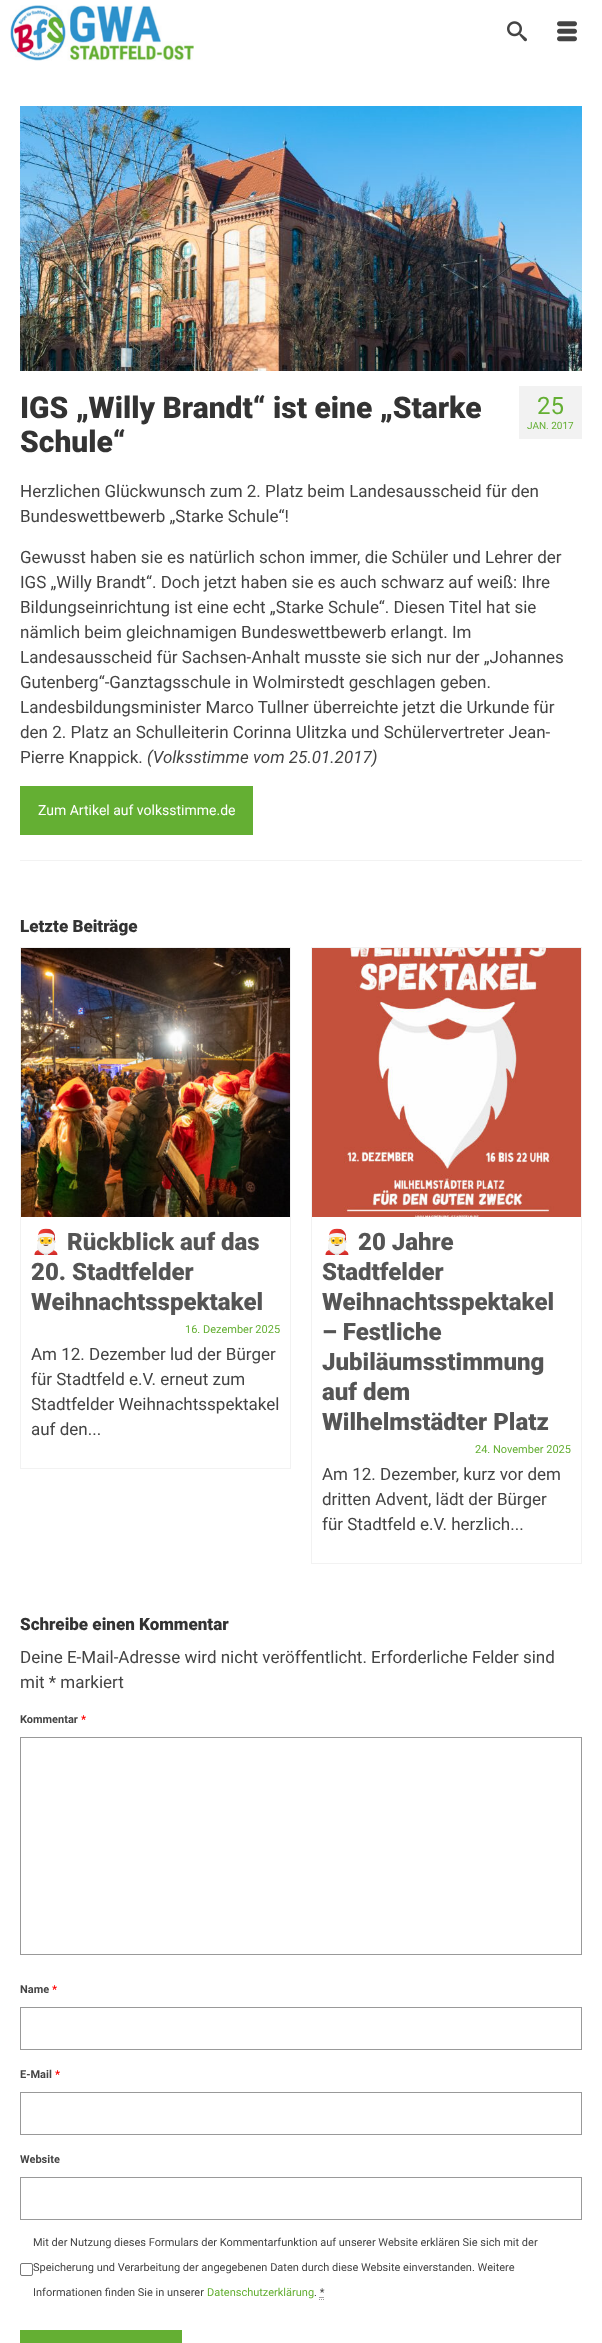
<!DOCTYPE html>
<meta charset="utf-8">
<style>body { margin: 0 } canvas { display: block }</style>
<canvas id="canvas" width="602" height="2343"></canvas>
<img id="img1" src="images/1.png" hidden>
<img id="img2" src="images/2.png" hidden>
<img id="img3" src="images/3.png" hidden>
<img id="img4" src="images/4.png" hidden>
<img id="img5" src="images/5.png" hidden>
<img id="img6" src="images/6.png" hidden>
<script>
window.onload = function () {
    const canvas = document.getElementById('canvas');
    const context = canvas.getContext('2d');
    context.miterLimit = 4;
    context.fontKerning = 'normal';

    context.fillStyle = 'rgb(255, 255, 255)';
    context.fillRect(0, 0, 602, 2343);
    context.drawImage(document.getElementById('img1'), 10, 5, 184, 56);
    context.drawImage(document.getElementById('img2'), 507, 21, 20, 21);
    context.drawImage(document.getElementById('img3'), 557, 21, 20, 21);
    context.drawImage(document.getElementById('img4'), 20, 106, 562, 265);
    context.fillStyle = 'rgb(242, 242, 242)';
    context.fillRect(519, 386, 63, 53);
    context.fillStyle = 'rgb(100, 175, 51)';
    context.fillRect(20, 786, 233, 49);
    context.fillStyle = 'rgb(242, 242, 242)';
    context.fillRect(20, 860, 562, 1);
    context.strokeStyle = 'rgb(242, 242, 242)';
    context.strokeRect(20.5, 947.5, 270, 521);
    context.drawImage(document.getElementById('img5'), 21, 948, 269, 269);
    context.strokeRect(311.5, 947.5, 270, 616);
    context.drawImage(document.getElementById('img6'), 312, 948, 269, 269);
    context.strokeStyle = 'rgb(153, 153, 153)';
    context.strokeRect(20.5, 1737.5, 561, 217);
    context.strokeRect(20.5, 2007.5, 561, 42);
    context.strokeRect(20.5, 2092.5, 561, 42);
    context.strokeRect(20.5, 2177.5, 561, 42);
    context.beginPath();
    context.roundRect(20.5, 2263.5, 12, 12, 1.5);
    context.strokeStyle = 'rgb(118, 118, 118)';
    context.stroke();
    context.beginPath();
    context.moveTo(319.5, 2297.5);
    context.lineTo(320.5, 2297.5);
    context.moveTo(321.5, 2297.5);
    context.lineTo(322.5, 2297.5);
    context.moveTo(323.5, 2297.5);
    context.lineTo(324, 2297.5);
    context.strokeStyle = 'rgb(68, 68, 68)';
    context.stroke();
    context.beginPath();
    context.moveTo(319, 2299.5);
    context.lineTo(320, 2299.5);
    context.moveTo(321, 2299.5);
    context.lineTo(322, 2299.5);
    context.moveTo(323, 2299.5);
    context.lineTo(324, 2299.5);
    context.strokeStyle = 'rgb(153, 153, 153)';
    context.stroke();
    context.fillStyle = 'rgb(100, 175, 51)';
    context.fillRect(20, 2330, 162, 13);
    context.font = '900 30px Roboto';
    context.fillStyle = 'rgb(51, 51, 51)';
    context.fillText('IGS „Willy Brandt“ ist eine „Starke', 20, 418);
    context.fillText('Schule“', 20, 452);
    context.font = '24px Roboto';
    context.fillStyle = 'rgb(100, 175, 51)';
    context.fillText('25', 537, 414);
    context.font = '10px Roboto';
    context.fillText('JAN. 2017', 527, 429);
    context.font = '17px Roboto';
    context.fillStyle = 'rgb(68, 68, 68)';
    context.fillText('Herzlichen Glückwunsch zum 2. Platz beim Landesausscheid für den', 20, 497);
    context.fillText('Bundeswettbewerb „Starke Schule“!', 20, 522);
    context.fillText('Gewusst haben sie es natürlich schon immer, die Schüler und Lehrer der', 20, 563);
    context.fillText('IGS „Willy Brandt“. Doch jetzt haben sie es auch schwarz auf weiß: Ihre', 20, 588);
    context.fillText('Bildungseinrichtung ist eine echt „Starke Schule“. Diesen Titel hat sie', 20, 613);
    context.fillText('nämlich beim gleichnamigen Bundeswettbewerb erlangt. Im', 20, 638);
    context.fillText('Landesausscheid für Sachsen-Anhalt musste sie sich nur der „Johannes', 20, 663);
    context.fillText('Gutenberg“-Ganztagsschule in Wolmirstedt geschlagen geben.', 20, 688);
    context.fillText('Landesbildungsminister Marco Tullner überreichte jetzt die Urkunde für', 20, 713);
    context.fillText('den 2. Platz an Schulleiterin Corinna Ulitzka und Schülervertreter Jean-', 20, 738);
    context.fillText('Pierre Knappick.', 20, 763);
    context.font = 'italic 17px Roboto';
    context.fillText('(Volksstimme vom 25.01.2017)', 147, 763);
    context.font = '14px Roboto';
    context.fillStyle = 'rgb(255, 255, 255)';
    context.fillText('Zum Artikel auf volksstimme.de', 38, 815);
    context.font = '900 17px Roboto';
    context.fillStyle = 'rgb(51, 51, 51)';
    context.fillText('Letzte Beiträge', 20, 932);
    context.font = 'bold 24px Noto Color Emoji';
    context.fillStyle = 'rgb(85, 85, 85)';
    context.fillText('🎅', 31, 1250);
    context.font = '900 24px Roboto';
    context.fillText('Rückblick auf das', 67, 1250);
    context.fillText('20. Stadtfelder', 31, 1280);
    context.fillText('Weihnachtsspektakel', 31, 1310);
    context.font = '11px Roboto';
    context.fillStyle = 'rgb(100, 175, 51)';
    context.fillText('16. Dezember 2025', 185, 1333);
    context.font = '17px Roboto';
    context.fillStyle = 'rgb(68, 68, 68)';
    context.fillText('Am 12. Dezember lud der Bürger', 31, 1360);
    context.fillText('für Stadtfeld e.V. erneut zum', 31, 1385);
    context.fillText('Stadtfelder Weihnachtsspektakel', 31, 1410);
    context.fillText('auf den...', 31, 1435);
    context.font = 'bold 24px Noto Color Emoji';
    context.fillStyle = 'rgb(85, 85, 85)';
    context.fillText('🎅', 322, 1250);
    context.font = '900 24px Roboto';
    context.fillText('20 Jahre', 358, 1250);
    context.fillText('Stadtfelder', 322, 1280);
    context.fillText('Weihnachtsspektakel', 322, 1310);
    context.fillText('– Festliche', 322, 1340);
    context.fillText('Jubiläumsstimmung', 322, 1370);
    context.fillText('auf dem', 322, 1400);
    context.fillText('Wilhelmstädter Platz', 322, 1430);
    context.font = '11px Roboto';
    context.fillStyle = 'rgb(100, 175, 51)';
    context.fillText('24. November 2025', 475, 1453);
    context.font = '17px Roboto';
    context.fillStyle = 'rgb(68, 68, 68)';
    context.fillText('Am 12. Dezember, kurz vor dem', 322, 1480);
    context.fillText('dritten Advent, lädt der Bürger', 322, 1505);
    context.fillText('für Stadtfeld e.V. herzlich...', 322, 1530);
    context.font = '900 17px Roboto';
    context.fillStyle = 'rgb(51, 51, 51)';
    context.fillText('Schreibe einen Kommentar', 20, 1630);
    context.font = '17px Roboto';
    context.fillStyle = 'rgb(68, 68, 68)';
    context.fillText('Deine E-Mail-Adresse wird nicht veröffentlicht. Erforderliche Felder sind', 20, 1663);
    context.fillText('mit * markiert', 20, 1688);
    context.font = 'bold 11px Roboto';
    context.fillText('Kommentar', 20, 1723);
    context.fillStyle = 'rgb(255, 0, 0)';
    context.fillText('*', 81, 1723);
    context.fillStyle = 'rgb(68, 68, 68)';
    context.fillText('Name', 20, 1993);
    context.fillStyle = 'rgb(255, 0, 0)';
    context.fillText('*', 52, 1993);
    context.fillStyle = 'rgb(68, 68, 68)';
    context.fillText('E-Mail', 20, 2078);
    context.fillStyle = 'rgb(255, 0, 0)';
    context.fillText('*', 55, 2078);
    context.fillStyle = 'rgb(68, 68, 68)';
    context.fillText('Website', 20, 2163);
    context.font = '11px Roboto';
    context.fillText('Mit der Nutzung dieses Formulars der Kommentarfunktion auf unserer Website erklären Sie sich mit der', 33, 2246);
    context.fillText('Speicherung und Verarbeitung der angegebenen Daten durch diese Website einverstanden. Weitere', 33, 2271);
    context.fillText('Informationen finden Sie in unserer', 33, 2296);
    context.fillStyle = 'rgb(100, 175, 51)';
    context.fillText('Datenschutzerklärung', 207, 2296);
    context.fillStyle = 'rgb(68, 68, 68)';
    context.fillText('. *', 314, 2296);
};
</script>
